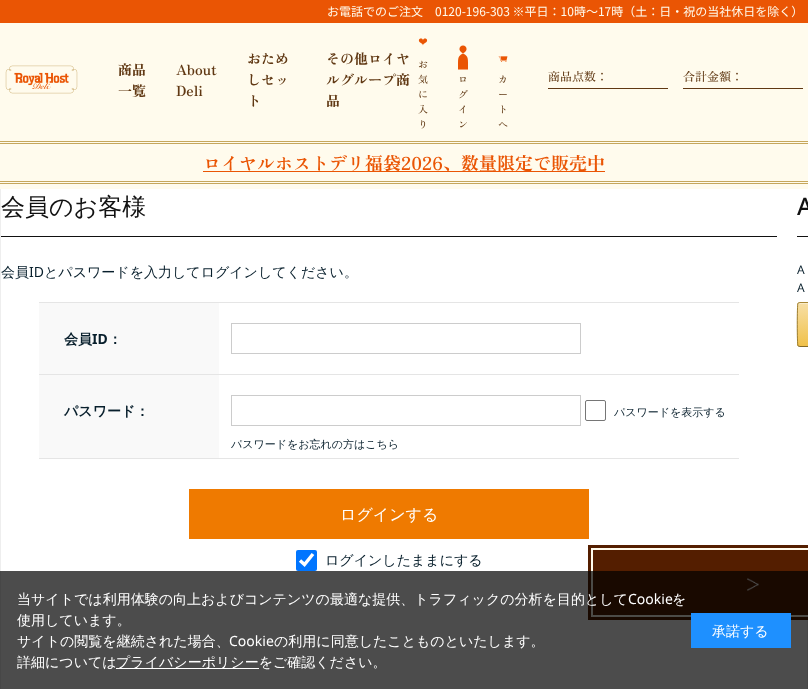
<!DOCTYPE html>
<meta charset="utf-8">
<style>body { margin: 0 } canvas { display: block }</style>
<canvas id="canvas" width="808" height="689"></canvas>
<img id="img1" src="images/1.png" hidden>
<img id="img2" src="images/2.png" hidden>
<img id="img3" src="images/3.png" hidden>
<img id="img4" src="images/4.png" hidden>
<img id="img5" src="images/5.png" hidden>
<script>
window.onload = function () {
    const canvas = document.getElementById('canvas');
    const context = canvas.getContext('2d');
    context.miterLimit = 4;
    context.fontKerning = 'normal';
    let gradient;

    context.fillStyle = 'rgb(255, 255, 255)';
    context.fillRect(0, 0, 808, 689);
    context.strokeStyle = 'rgb(238, 238, 238)';
    context.strokeRect(0.5, -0.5, 807, 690);
    context.fillStyle = 'rgb(234, 85, 4)';
    context.fillRect(0, 0, 808, 23);
    context.fillStyle = 'rgb(255, 251, 237)';
    context.fillRect(0, 23, 808, 166);
    context.drawImage(document.getElementById('img1'), 5, 65, 73, 29);
    context.drawImage(document.getElementById('img2'), 418, 38, 10, 8);
    context.drawImage(document.getElementById('img3'), 458, 45, 10, 25);
    context.drawImage(document.getElementById('img4'), 498, 56, 10, 6);
    context.fillStyle = 'rgb(96, 56, 19)';
    context.fillRect(548, 88, 120, 1);
    context.fillRect(683, 88, 120, 1);
    context.fillStyle = 'rgb(198, 167, 92)';
    context.fillRect(0, 141, 808, 1);
    context.fillRect(0, 143, 808, 1);
    context.fillRect(0, 181, 808, 1);
    context.fillRect(0, 183, 808, 1);
    context.fillStyle = 'rgb(234, 85, 4)';
    context.fillRect(203, 171, 402, 1);
    context.fillStyle = 'rgb(255, 255, 255)';
    context.fillRect(807, 189, 1, 409);
    context.fillStyle = 'rgb(17, 17, 17)';
    context.fillRect(1, 236, 776, 1);
    context.fillStyle = 'rgb(229, 229, 229)';
    context.fillRect(39, 302, 700, 1);
    context.fillStyle = 'rgb(249, 249, 249)';
    context.fillRect(39, 303, 180, 71);
    context.strokeStyle = 'rgb(204, 204, 204)';
    context.strokeRect(231.5, 323.5, 349, 30);
    context.fillStyle = 'rgb(229, 229, 229)';
    context.fillRect(39, 374, 700, 1);
    context.fillRect(39, 458, 700, 1);
    context.fillStyle = 'rgb(249, 249, 249)';
    context.fillRect(39, 375, 180, 83);
    context.strokeRect(231.5, 395.5, 349, 30);
    context.beginPath();
    context.roundRect(585.5, 400.5, 20, 20, 1.5);
    context.strokeStyle = 'rgb(118, 118, 118)';
    context.stroke();
    context.fillStyle = 'rgb(239, 122, 0)';
    context.fillRect(189, 489, 400, 50);
    context.fillStyle = 'rgb(0, 117, 255)';
    context.beginPath();
    context.roundRect(296, 550, 21, 21, 2);
    context.fill();
    context.beginPath();
    context.moveTo(300, 560.5);
    context.lineTo(304.5, 564.5);
    context.lineTo(313, 554);
    context.strokeStyle = 'rgb(255, 255, 255)';
    context.lineWidth = 3.4;
    context.stroke();
    context.fillStyle = 'rgb(17, 17, 17)';
    context.fillRect(797, 236, 11, 1);
    context.save();
    context.beginPath();
    context.roundRect(797, 302, 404, 45, 3);
    context.clip();
    gradient = context.createLinearGradient(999, 303, 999, 346);
    gradient.addColorStop(0, 'rgb(247, 223, 165)');
    gradient.addColorStop(1, 'rgb(240, 193, 75)');
    context.fillStyle = gradient;
    context.fillRect(797, 303, 11, 43);
    context.restore();
    context.fillStyle = 'rgb(250, 236, 200)';
    context.beginPath();
    context.moveTo(800, 304);
    context.lineTo(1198, 304);
    context.bezierCurveTo(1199, 304, 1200, 305, 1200, 306);
    context.bezierCurveTo(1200, 305, 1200, 304, 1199, 303);
    context.lineTo(800, 303);
    context.lineTo(798, 304);
    context.lineTo(798, 306);
    context.bezierCurveTo(798, 305, 799, 304, 800, 304);
    context.closePath();
    context.fill();
    context.beginPath();
    context.moveTo(798, 303);
    context.lineTo(800, 302.5);
    context.lineTo(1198, 302.5);
    context.lineTo(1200, 303);
    context.strokeStyle = 'rgb(168, 135, 52)';
    context.lineWidth = 1;
    context.stroke();
    context.beginPath();
    context.moveTo(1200, 346);
    context.lineTo(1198, 346.5);
    context.lineTo(800, 346.5);
    context.lineTo(798, 346);
    context.strokeStyle = 'rgb(132, 106, 41)';
    context.stroke();
    context.beginPath();
    context.moveTo(798, 346);
    context.bezierCurveTo(797, 344.5, 797, 304.5, 798, 303);
    context.strokeStyle = 'rgb(156, 126, 49)';
    context.stroke();
    context.fillStyle = 'rgb(84, 30, 0)';
    context.fillRect(588, 545, 220, 75);
    context.fillStyle = 'rgb(255, 251, 237)';
    context.fillRect(591, 548, 217, 69);
    context.fillStyle = 'rgb(84, 30, 0)';
    context.fillRect(593, 550, 215, 65);
    context.drawImage(document.getElementById('img5'), 747, 578, 12, 13);
    context.fillStyle = 'rgba(0, 0, 0, 0.7)';
    context.fillRect(0, 571, 808, 118);
    context.fillStyle = 'rgb(255, 255, 255)';
    context.fillRect(116, 668, 143, 1);
    context.fillStyle = 'rgb(30, 144, 255)';
    context.fillRect(691, 613, 100, 35);
    context.font = '12px Noto Sans JP';
    context.fillStyle = 'rgb(255, 251, 237)';
    context.fillText('お電話でのご注文　0120-196-303 ※平日：10時～17時（土：日・祝の当社休日を除く）', 327, 16);
    context.font = '900 14px Zen Old Mincho';
    context.fillStyle = 'rgb(96, 56, 19)';
    context.fillText('商品', 118, 75);
    context.fillText('一覧', 118, 96);
    context.fillText('About', 176, 75);
    context.fillText('Deli', 176, 96);
    context.fillText('おため', 247, 64);
    context.fillText('しセッ', 247, 85);
    context.fillText('ト', 247, 106);
    context.fillText('その他ロイヤ', 326, 64);
    context.fillText('ルグループ商', 326, 85);
    context.fillText('品', 326, 106);
    context.font = '500 10px Zen Old Mincho';
    context.fillText('お', 418, 68);
    context.fillText('気', 418, 83);
    context.fillText('に', 418, 98);
    context.fillText('入', 418, 113);
    context.fillText('り', 418, 128);
    context.fillText('ロ', 458, 83);
    context.fillText('グ', 458, 98);
    context.fillText('イ', 458, 113);
    context.fillText('ン', 458, 128);
    context.fillText('カ', 498, 83);
    context.fillText('ー', 498, 98);
    context.fillText('ト', 498, 113);
    context.fillText('へ', 498, 128);
    context.font = '500 12px Zen Old Mincho';
    context.fillText('商品点数：', 548, 81);
    context.fillText('合計金額：', 683, 81);
    context.font = 'bold 18px Zen Old Mincho';
    context.fillStyle = 'rgb(234, 85, 4)';
    context.fillText('ロイヤルホストデリ福袋2026、数量限定で販売中', 203, 170);
    context.font = '500 24px WenQuanYi Zen Hei';
    context.fillStyle = 'rgb(17, 17, 17)';
    context.fillText('会員のお客様', 1, 215);
    context.font = '500 14px WenQuanYi Zen Hei';
    context.fillStyle = 'rgb(8, 31, 44)';
    context.fillText('会員', 1, 277);
    context.font = '14px Noto Sans';
    context.fillText('ID', 29, 277);
    context.font = '500 14px WenQuanYi Zen Hei';
    context.fillText('とパスワードを入力してログインしてください。', 44, 277);
    context.font = 'bold 14px WenQuanYi Zen Hei';
    context.fillText('会員', 64, 344);
    context.font = 'bold 14px Noto Sans';
    context.fillText('ID', 92, 344);
    context.font = 'bold 14px WenQuanYi Zen Hei';
    context.fillText('：', 108, 344);
    context.fillText('パスワード：', 64, 416);
    context.font = '500 11px WenQuanYi Zen Hei';
    context.fillText('パスワードを表示する', 614, 416);
    context.fillText('パスワードをお忘れの方はこちら', 231, 448);
    context.font = '500 16px WenQuanYi Zen Hei';
    context.fillStyle = 'rgb(255, 255, 255)';
    context.fillText('ログインする', 340, 520);
    context.font = '500 14px WenQuanYi Zen Hei';
    context.fillStyle = 'rgb(8, 31, 44)';
    context.fillText('ログインしたままにする', 325, 565);
    context.font = '500 24px Noto Sans';
    context.fillStyle = 'rgb(17, 17, 17)';
    context.fillText('A', 797, 215);
    context.font = '12px Noto Sans';
    context.fillStyle = 'rgb(8, 31, 44)';
    context.fillText('A', 797, 274);
    context.fillText('A', 797, 292);
    context.font = '500 14px WenQuanYi Zen Hei';
    context.fillStyle = 'rgb(255, 255, 255)';
    context.fillText('当サイトでは利用体験の向上およびコンテンツの最適な提供、トラフィックの分析を目的として', 17, 604);
    context.font = '14px Noto Sans';
    context.fillText('Cookie', 628, 604);
    context.font = '500 14px WenQuanYi Zen Hei';
    context.fillText('を', 672, 604);
    context.fillText('使用しています。', 17, 625);
    context.fillText('サイトの閲覧を継続された場合、', 17, 646);
    context.font = '14px Noto Sans';
    context.fillText('Cookie', 229, 646);
    context.font = '500 14px WenQuanYi Zen Hei';
    context.fillText('の利用に同意したことものといたします。', 274, 646);
    context.fillText('詳細については', 17, 667);
    context.fillText('プライバシーポリシーをご確認ください。', 116, 667);
    context.fillText('承諾する', 712, 636);
};
</script>
